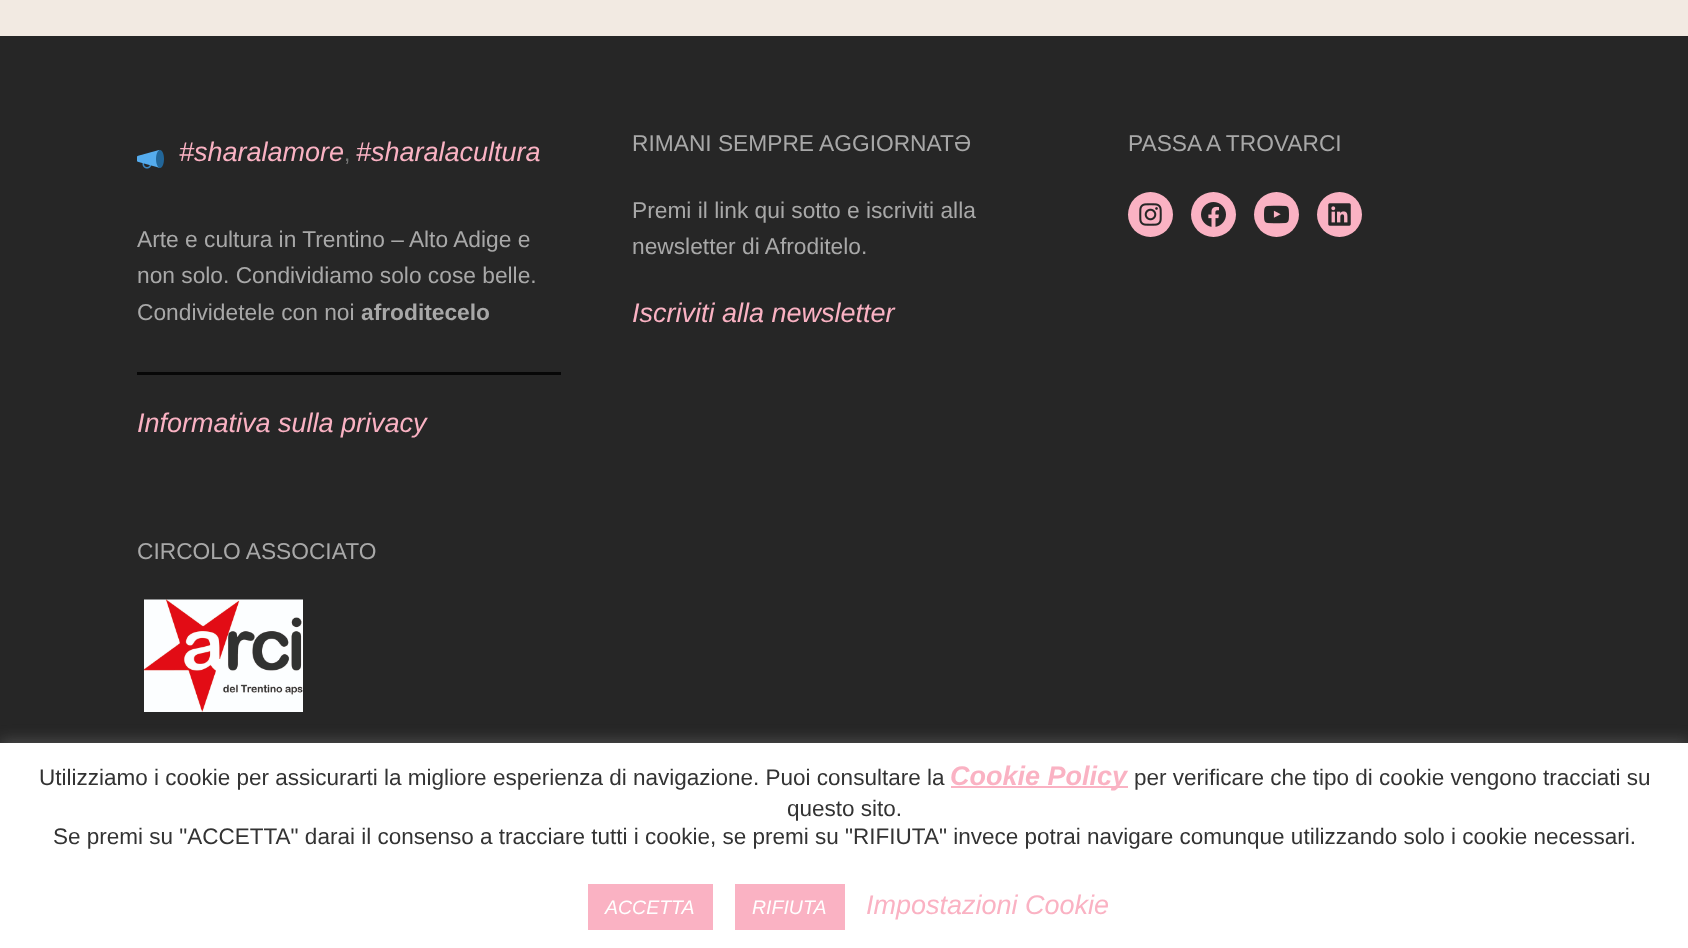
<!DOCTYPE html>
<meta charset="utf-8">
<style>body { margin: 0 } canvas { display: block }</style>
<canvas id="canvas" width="1688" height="948"></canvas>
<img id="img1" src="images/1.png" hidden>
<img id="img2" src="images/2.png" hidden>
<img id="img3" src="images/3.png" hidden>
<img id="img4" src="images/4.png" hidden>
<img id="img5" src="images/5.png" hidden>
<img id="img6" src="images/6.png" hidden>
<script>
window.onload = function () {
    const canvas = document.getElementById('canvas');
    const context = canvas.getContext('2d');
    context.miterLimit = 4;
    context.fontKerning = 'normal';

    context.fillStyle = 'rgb(242, 234, 226)';
    context.fillRect(0, 0, 1688, 948);
    context.fillStyle = 'rgb(38, 38, 38)';
    context.fillRect(0, 36, 1688, 707);
    context.drawImage(document.getElementById('img1'), 137, 149, 27, 20);
    context.fillStyle = 'rgb(7, 7, 7)';
    context.fillRect(137, 372, 424, 3);
    context.drawImage(document.getElementById('img2'), 144, 599, 159, 113);
    context.fillStyle = 'rgb(250, 178, 195)';
    context.beginPath();
    context.arc(1150.5, 214.5, 22.5, 0, 2 * Math.PI);
    context.fill();
    context.drawImage(document.getElementById('img3'), 1139, 203, 23, 23);
    context.beginPath();
    context.arc(1213.5, 214.5, 22.5, 0, 2 * Math.PI);
    context.fill();
    context.drawImage(document.getElementById('img4'), 1201, 202, 25, 25);
    context.beginPath();
    context.arc(1276.5, 214.5, 22.5, 0, 2 * Math.PI);
    context.fill();
    context.drawImage(document.getElementById('img5'), 1264, 205, 25, 19);
    context.beginPath();
    context.arc(1339.5, 214.5, 22.5, 0, 2 * Math.PI);
    context.fill();
    context.drawImage(document.getElementById('img6'), 1328, 203, 23, 23);
    context.fillStyle = 'rgba(172, 171, 171, 0.3)';
    context.filter = 'blur(7.5px)';
    context.beginPath();
    context.rect(0, 741, 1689, 206);
    context.fill();
    context.filter = 'none';
    context.fillStyle = 'rgb(255, 255, 255)';
    context.fillRect(0, 743, 1688, 205);
    context.fillStyle = 'rgb(250, 178, 195)';
    context.fillRect(951, 786, 177, 2);
    context.fillRect(588, 884, 125, 46);
    context.fillRect(735, 884, 110, 46);
    context.font = 'italic 27px Liberation Sans';
    context.fillText('#sharalamore', 179, 161);
    context.font = '22.75px Liberation Sans';
    context.fillStyle = 'rgb(118, 118, 118)';
    context.fillText(',', 344, 161);
    context.font = 'italic 27px Liberation Sans';
    context.fillStyle = 'rgb(250, 178, 195)';
    context.fillText('#sharalacultura', 356, 161);
    context.font = '22.75px Liberation Sans';
    context.fillStyle = 'rgb(168, 168, 168)';
    context.fillText('Arte e cultura in Trentino – Alto Adige e', 137, 247);
    context.fillText('non solo. Condividiamo solo cose belle.', 137, 283);
    context.fillText('Condividetele con noi', 137, 320);
    context.font = 'bold 22.75px Liberation Sans';
    context.fillText('afroditecelo', 361, 320);
    context.font = 'italic 27px Liberation Sans';
    context.fillStyle = 'rgb(250, 178, 195)';
    context.fillText('Informativa sulla privacy', 137, 432);
    context.font = '22.75px Liberation Sans';
    context.fillStyle = 'rgb(168, 168, 168)';
    context.fillText('CIRCOLO ASSOCIATO', 137, 559);
    context.fillText('RIMANI SEMPRE AGGIORNATƏ', 632, 151);
    context.fillText('Premi il link qui sotto e iscriviti alla', 632, 218);
    context.fillText('newsletter di Afroditelo.', 632, 254);
    context.font = 'italic 27px Liberation Sans';
    context.fillStyle = 'rgb(250, 178, 195)';
    context.fillText('Iscriviti alla newsletter', 632, 322);
    context.font = '22.75px Liberation Sans';
    context.fillStyle = 'rgb(168, 168, 168)';
    context.fillText('PASSA A TROVARCI', 1128, 151);
    context.font = '22.5px Liberation Sans';
    context.fillStyle = 'rgb(51, 51, 51)';
    context.fillText('Utilizziamo i cookie per assicurarti la migliore esperienza di navigazione. Puoi consultare la', 39, 785);
    context.font = 'italic bold 27px Liberation Sans';
    context.fillStyle = 'rgb(250, 178, 195)';
    context.fillText('Cookie Policy', 950, 785);
    context.font = '22.5px Liberation Sans';
    context.fillStyle = 'rgb(51, 51, 51)';
    context.fillText('per verificare che tipo di cookie vengono tracciati su', 1134, 785);
    context.fillText('questo sito.', 787, 816);
    context.fillText('Se premi su "ACCETTA" darai il consenso a tracciare tutti i cookie, se premi su "RIFIUTA" invece potrai navigare comunque utilizzando solo i cookie necessari.', 53, 844);
    context.font = 'italic 19.5px Liberation Sans';
    context.fillStyle = 'rgb(255, 255, 255)';
    context.fillText('ACCETTA', 605, 914);
    context.fillText('RIFIUTA', 752, 914);
    context.font = 'italic 27px Liberation Sans';
    context.fillStyle = 'rgb(250, 178, 195)';
    context.fillText('Impostazioni Cookie', 866, 914);
};
</script>
